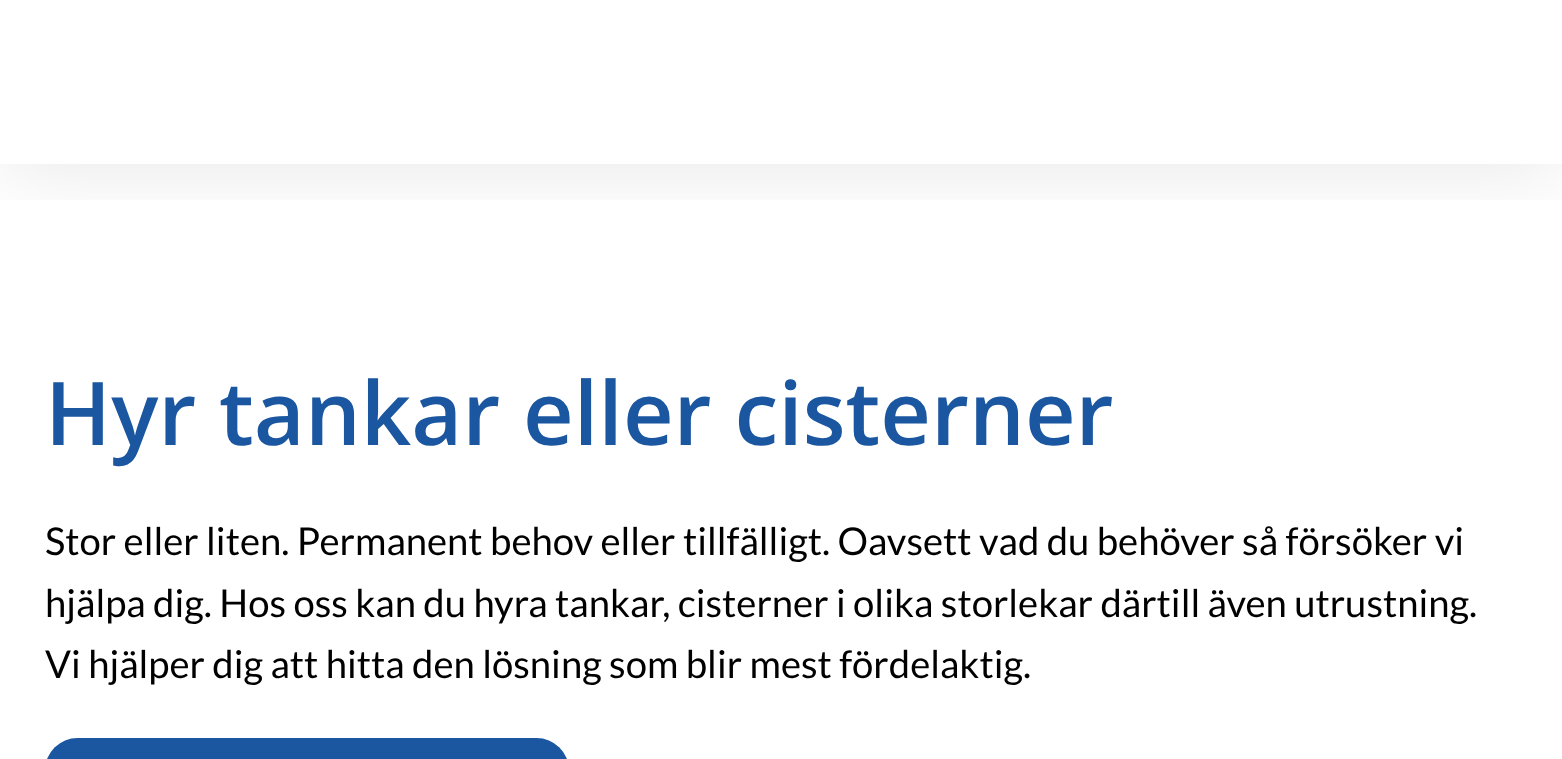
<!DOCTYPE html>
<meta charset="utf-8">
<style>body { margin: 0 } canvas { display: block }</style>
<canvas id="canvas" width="1562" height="759"></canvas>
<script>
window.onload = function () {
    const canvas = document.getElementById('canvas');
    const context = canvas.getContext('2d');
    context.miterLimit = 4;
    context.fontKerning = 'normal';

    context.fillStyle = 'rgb(255, 255, 255)';
    context.fillRect(0, 0, 1562, 759);
    context.save();
    context.beginPath();
    context.rect(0, 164, 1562, 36);
    context.clip();
    context.fillStyle = 'rgba(0, 0, 0, 0.1)';
    context.filter = 'blur(43px)';
    context.beginPath();
    context.rect(0, 0, 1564, 164);
    context.fill();
    context.filter = 'none';
    context.restore();
    context.fillStyle = 'rgb(27, 86, 160)';
    context.beginPath();
    context.roundRect(45, 738, 524, 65, 44);
    context.fill();
    context.font = '600 88px Open Sans';
    context.fillText('Hyr tankar eller cisterner', 45, 445);
    context.font = '38.25px Lato';
    context.fillStyle = 'rgb(0, 0, 0)';
    context.fillText('Stor eller liten. Permanent behov eller tillfälligt. Oavsett vad du behöver så försöker vi', 45, 555);
    context.fillText('hjälpa dig. Hos oss kan du hyra tankar, cisterner i olika storlekar därtill även utrustning.', 45, 617);
    context.fillText('Vi hjälper dig att hitta den lösning som blir mest fördelaktig.', 45, 678);
};
</script>
